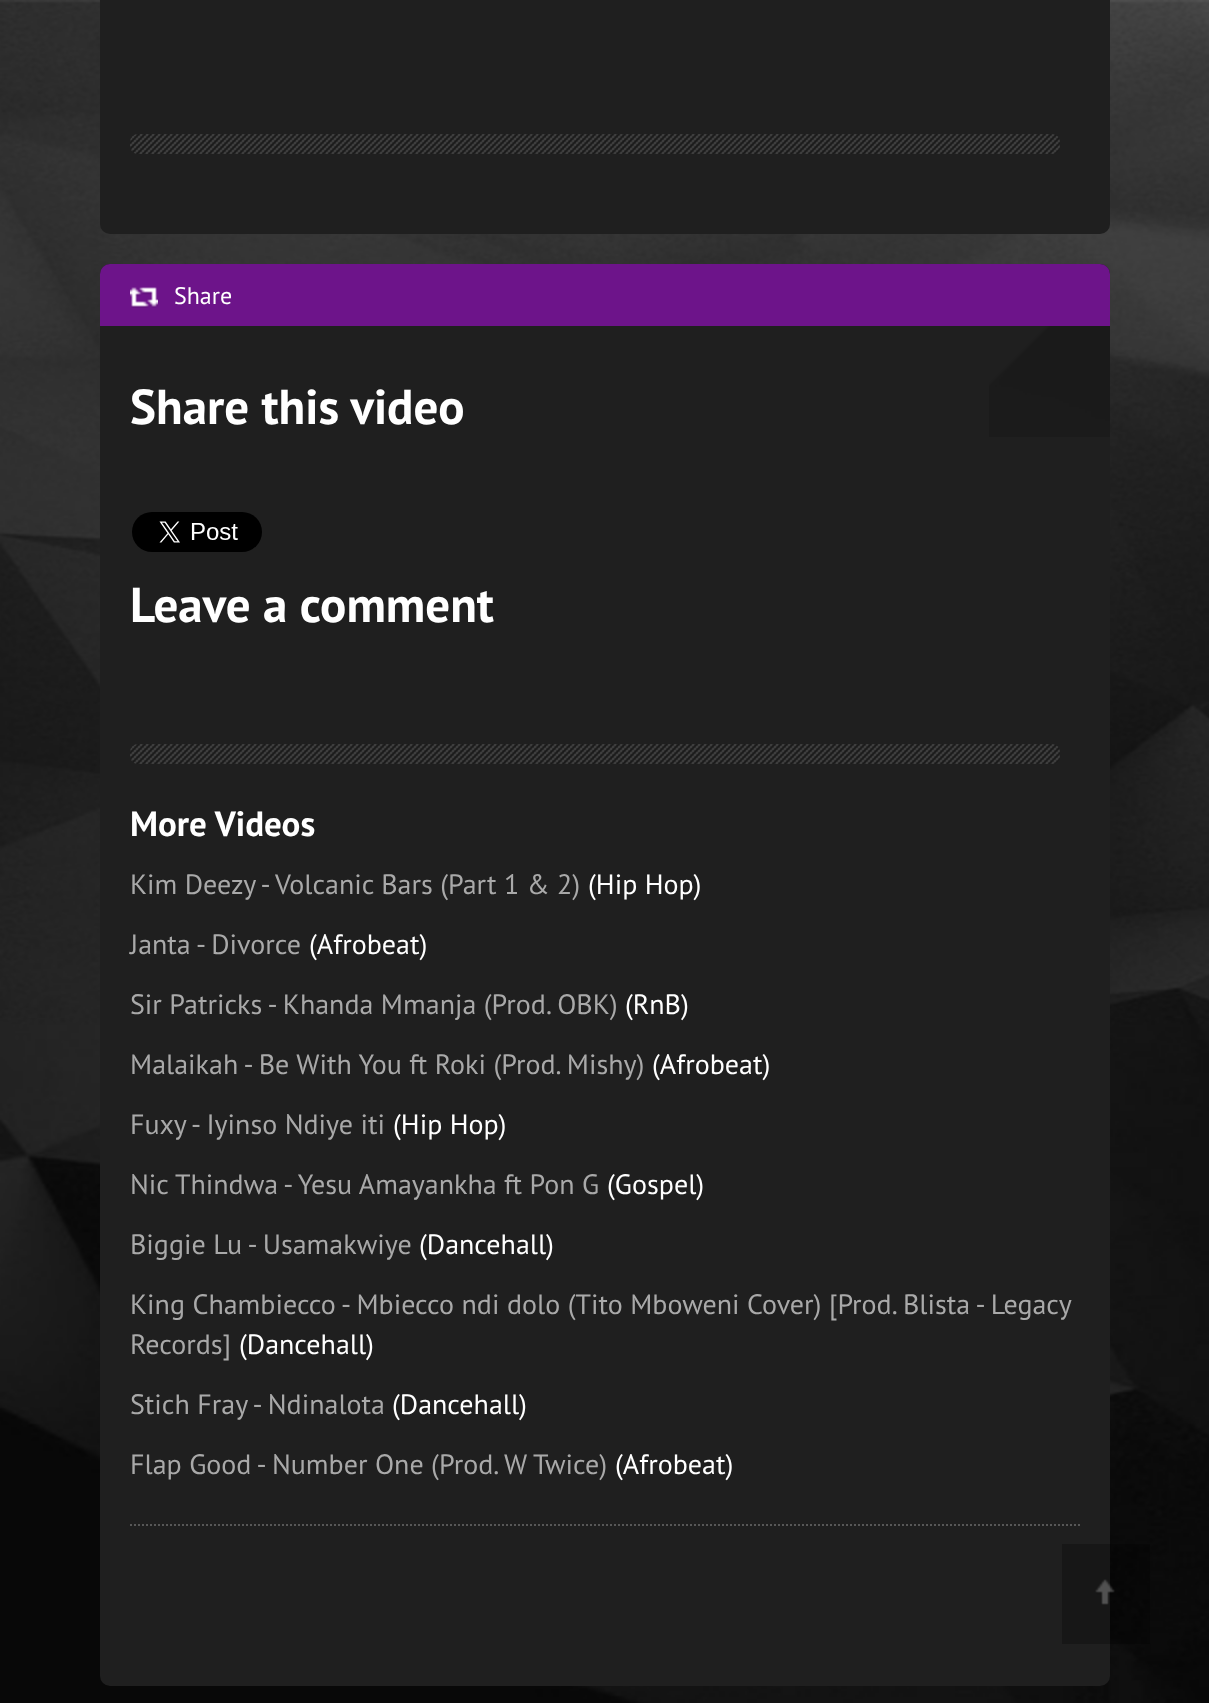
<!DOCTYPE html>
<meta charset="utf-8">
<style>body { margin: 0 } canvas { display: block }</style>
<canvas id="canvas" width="1209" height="1703"></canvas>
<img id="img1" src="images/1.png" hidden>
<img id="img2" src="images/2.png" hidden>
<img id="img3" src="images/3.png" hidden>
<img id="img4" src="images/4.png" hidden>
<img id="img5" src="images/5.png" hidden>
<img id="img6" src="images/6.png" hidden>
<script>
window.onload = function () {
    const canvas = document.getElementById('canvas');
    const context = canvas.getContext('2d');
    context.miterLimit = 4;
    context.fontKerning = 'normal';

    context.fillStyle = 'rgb(255, 255, 255)';
    context.fillRect(0, 0, 1209, 1703);
    context.drawImage(document.getElementById('img1'), 0, 0, 1209, 1703);
    context.fillStyle = 'rgb(31, 31, 31)';
    context.beginPath();
    context.roundRect(100, -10, 1010, 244, 10);
    context.fill();
    context.drawImage(document.getElementById('img2'), 130, 134, 930, 20);
    context.beginPath();
    context.roundRect(100, 264, 1010, 1422, 10);
    context.fill();
    context.drawImage(document.getElementById('img3'), 989, 269, 121, 168);
    context.fillStyle = 'rgb(109, 20, 138)';
    context.beginPath();
    context.roundRect(100, 264, 1010, 62, [10, 10, 0, 0]);
    context.fill();
    context.drawImage(document.getElementById('img4'), 130, 287, 28, 21);
    context.drawImage(document.getElementById('img5'), 132, 512, 130, 40);
    context.drawImage(document.getElementById('img2'), 130, 744, 930, 20);
    context.beginPath();
    context.moveTo(130, 1525);
    context.lineTo(1080, 1525);
    context.strokeStyle = 'rgb(87, 87, 87)';
    context.lineWidth = 2;
    context.setLineDash([2, 2]);
    context.stroke();
    context.fillStyle = 'rgba(0, 0, 0, 0.25)';
    context.fillRect(1062, 1544, 88, 100);
    context.drawImage(document.getElementById('img6'), 1095, 1579, 20, 26);
    context.font = '24px PT Sans';
    context.fillStyle = 'rgb(255, 255, 255)';
    context.fillText('Share', 174, 304);
    context.font = 'bold 49px PT Sans';
    context.fillText('Share this video', 130, 424);
    context.fillText('Leave a comment', 130, 622);
    context.font = 'bold 35px PT Sans';
    context.fillText('More Videos', 130, 836);
    context.font = '28px PT Sans';
    context.fillStyle = 'rgb(169, 169, 169)';
    context.fillText('Kim Deezy - Volcanic Bars (Part 1 & 2)', 130, 894);
    context.fillStyle = 'rgb(255, 255, 255)';
    context.fillText('(Hip Hop)', 588, 894);
    context.fillStyle = 'rgb(169, 169, 169)';
    context.fillText('Janta - Divorce', 130, 954);
    context.fillStyle = 'rgb(255, 255, 255)';
    context.fillText('(Afrobeat)', 309, 954);
    context.fillStyle = 'rgb(169, 169, 169)';
    context.fillText('Sir Patricks - Khanda Mmanja (Prod. OBK)', 130, 1014);
    context.fillStyle = 'rgb(255, 255, 255)';
    context.fillText('(RnB)', 625, 1014);
    context.fillStyle = 'rgb(169, 169, 169)';
    context.fillText('Malaikah - Be With You ft Roki (Prod. Mishy)', 130, 1074);
    context.fillStyle = 'rgb(255, 255, 255)';
    context.fillText('(Afrobeat)', 652, 1074);
    context.fillStyle = 'rgb(169, 169, 169)';
    context.fillText('Fuxy - Iyinso Ndiye iti', 130, 1134);
    context.fillStyle = 'rgb(255, 255, 255)';
    context.fillText('(Hip Hop)', 393, 1134);
    context.fillStyle = 'rgb(169, 169, 169)';
    context.fillText('Nic Thindwa - Yesu Amayankha ft Pon G', 130, 1194);
    context.fillStyle = 'rgb(255, 255, 255)';
    context.fillText('(Gospel)', 607, 1194);
    context.fillStyle = 'rgb(169, 169, 169)';
    context.fillText('Biggie Lu - Usamakwiye', 130, 1254);
    context.fillStyle = 'rgb(255, 255, 255)';
    context.fillText('(Dancehall)', 419, 1254);
    context.fillStyle = 'rgb(169, 169, 169)';
    context.fillText('King Chambiecco - Mbiecco ndi dolo (Tito Mboweni Cover) [Prod. Blista - Legacy', 130, 1314);
    context.fillText('Records]', 130, 1354);
    context.fillStyle = 'rgb(255, 255, 255)';
    context.fillText('(Dancehall)', 239, 1354);
    context.fillStyle = 'rgb(169, 169, 169)';
    context.fillText('Stich Fray - Ndinalota', 130, 1414);
    context.fillStyle = 'rgb(255, 255, 255)';
    context.fillText('(Dancehall)', 392, 1414);
    context.fillStyle = 'rgb(169, 169, 169)';
    context.fillText('Flap Good - Number One (Prod. W Twice)', 130, 1474);
    context.fillStyle = 'rgb(255, 255, 255)';
    context.fillText('(Afrobeat)', 615, 1474);
};
</script>
